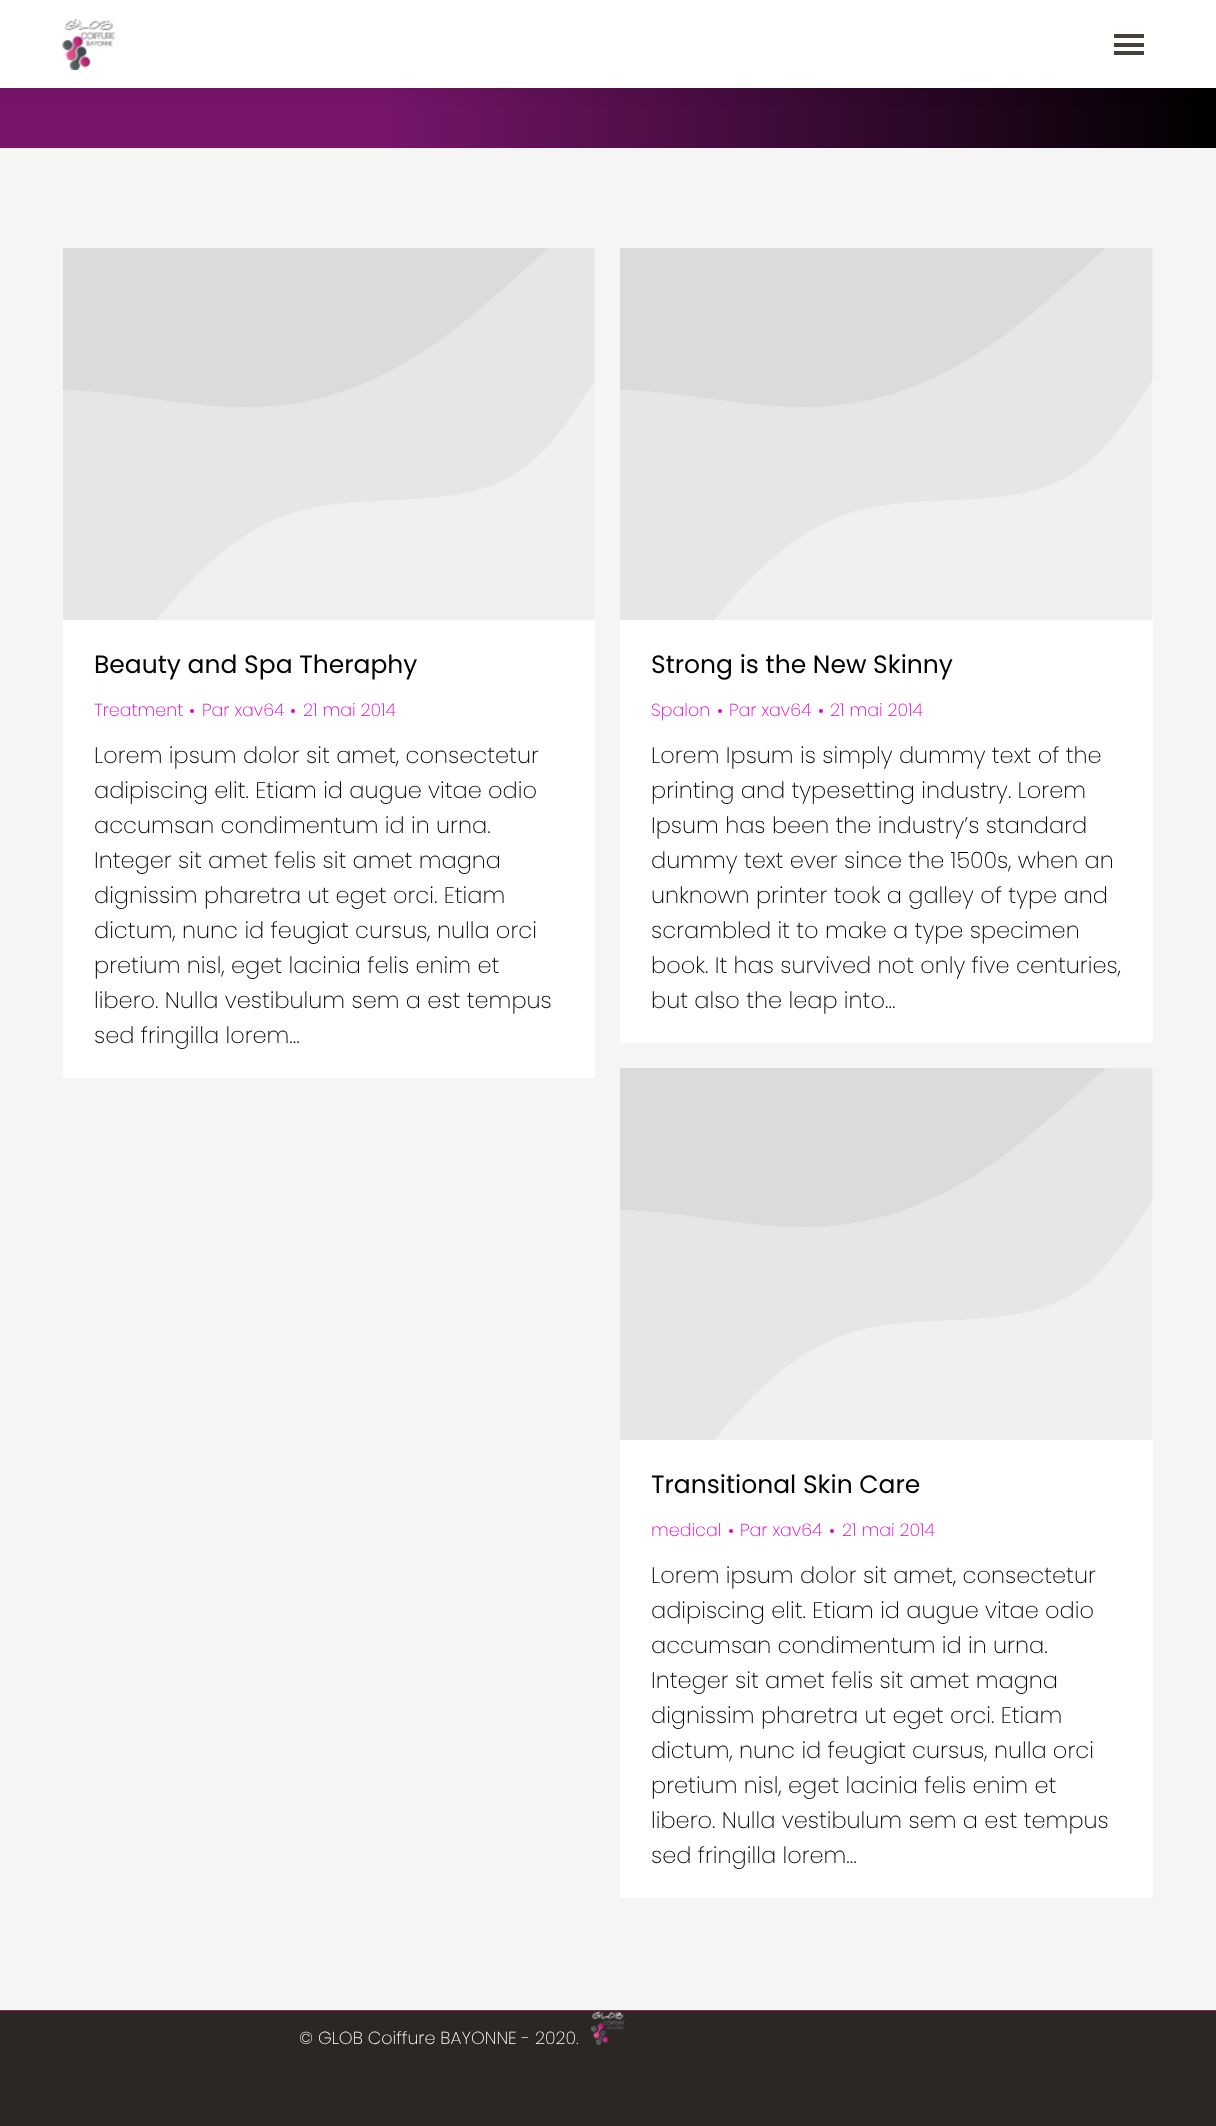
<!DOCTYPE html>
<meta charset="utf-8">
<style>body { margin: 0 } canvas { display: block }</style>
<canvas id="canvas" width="1216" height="2126"></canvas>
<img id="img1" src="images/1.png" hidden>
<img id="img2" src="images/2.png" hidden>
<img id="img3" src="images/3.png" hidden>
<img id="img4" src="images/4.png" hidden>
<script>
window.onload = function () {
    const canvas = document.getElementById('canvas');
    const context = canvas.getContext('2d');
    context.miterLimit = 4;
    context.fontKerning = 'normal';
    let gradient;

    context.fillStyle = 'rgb(245, 245, 245)';
    context.fillRect(0, 0, 1216, 2126);
    gradient = context.createLinearGradient(0, 10, 1216, 10);
    gradient.addColorStop(0.32, 'rgb(118, 21, 106)');
    gradient.addColorStop(1, 'rgb(0, 0, 0)');
    context.fillStyle = gradient;
    context.fillRect(0, 88, 1216, 60);
    context.fillStyle = 'rgba(0, 0, 0, 0.07)';
    context.filter = 'blur(9.5px)';
    context.beginPath();
    context.rect(-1, -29, 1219, 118);
    context.fill();
    context.filter = 'none';
    context.fillStyle = 'rgb(255, 255, 255)';
    context.fillRect(0, 0, 1216, 88);
    context.drawImage(document.getElementById('img1'), 62, 18, 53, 52);
    context.fillStyle = 'rgb(70, 64, 61)';
    context.fillRect(1114, 34, 30, 4);
    context.fillRect(1114, 43, 30, 4);
    context.fillRect(1114, 51, 30, 4);
    context.fillStyle = 'rgb(255, 255, 255)';
    context.fillRect(63, 248, 532, 830);
    context.drawImage(document.getElementById('img2'), 63, 248, 532, 372);
    context.fillStyle = 'rgb(226, 1, 207)';
    context.beginPath();
    context.arc(192, 711, 2, 0, 2 * Math.PI);
    context.fill();
    context.beginPath();
    context.arc(293, 711, 2, 0, 2 * Math.PI);
    context.fill();
    context.fillStyle = 'rgb(255, 255, 255)';
    context.fillRect(620, 248, 533, 795);
    context.drawImage(document.getElementById('img3'), 620, 248, 533, 372);
    context.fillStyle = 'rgb(226, 1, 207)';
    context.beginPath();
    context.arc(720, 711, 2, 0, 2 * Math.PI);
    context.fill();
    context.beginPath();
    context.arc(821, 711, 2, 0, 2 * Math.PI);
    context.fill();
    context.fillStyle = 'rgb(255, 255, 255)';
    context.fillRect(620, 1068, 533, 830);
    context.drawImage(document.getElementById('img3'), 620, 1068, 533, 372);
    context.fillStyle = 'rgb(226, 1, 207)';
    context.beginPath();
    context.arc(731, 1531, 2, 0, 2 * Math.PI);
    context.fill();
    context.beginPath();
    context.arc(832, 1531, 2, 0, 2 * Math.PI);
    context.fill();
    context.fillStyle = 'rgb(144, 36, 98)';
    context.fillRect(0, 2010, 1216, 1);
    context.fillStyle = 'rgb(42, 39, 37)';
    context.fillRect(0, 2011, 1216, 115);
    context.drawImage(document.getElementById('img4'), 591, 2011, 34, 34);
    context.font = '25px Poppins';
    context.fillStyle = 'rgb(0, 0, 0)';
    context.fillText('Beauty and Spa Theraphy', 94, 673);
    context.font = '200 17.5px Poppins';
    context.fillStyle = 'rgb(226, 1, 207)';
    context.fillText('Treatment', 94, 716);
    context.fillText('Par xav64', 202, 716);
    context.fillText('21 mai 2014', 303, 716);
    context.font = '200 22.5px Poppins';
    context.fillStyle = 'rgb(0, 0, 0)';
    context.fillText('Lorem ipsum dolor sit amet, consectetur', 94, 763);
    context.fillText('adipiscing elit. Etiam id augue vitae odio', 94, 798);
    context.fillText('accumsan condimentum id in urna.', 94, 833);
    context.fillText('Integer sit amet felis sit amet magna', 94, 868);
    context.fillText('dignissim pharetra ut eget orci. Etiam', 94, 903);
    context.fillText('dictum, nunc id feugiat cursus, nulla orci', 94, 938);
    context.fillText('pretium nisl, eget lacinia felis enim et', 94, 973);
    context.fillText('libero. Nulla vestibulum sem a est tempus', 94, 1008);
    context.fillText('sed fringilla lorem…', 94, 1043);
    context.font = '25px Poppins';
    context.fillText('Strong is the New Skinny', 651, 673);
    context.font = '200 17.5px Poppins';
    context.fillStyle = 'rgb(226, 1, 207)';
    context.fillText('Spalon', 651, 716);
    context.fillText('Par xav64', 729, 716);
    context.fillText('21 mai 2014', 830, 716);
    context.font = '200 22.5px Poppins';
    context.fillStyle = 'rgb(0, 0, 0)';
    context.fillText('Lorem Ipsum is simply dummy text of the', 651, 763);
    context.fillText('printing and typesetting industry. Lorem', 651, 798);
    context.fillText('Ipsum has been the industry’s standard', 651, 833);
    context.fillText('dummy text ever since the 1500s, when an', 651, 868);
    context.fillText('unknown printer took a galley of type and', 651, 903);
    context.fillText('scrambled it to make a type specimen', 651, 938);
    context.fillText('book. It has survived not only five centuries,', 651, 973);
    context.fillText('but also the leap into…', 651, 1008);
    context.font = '25px Poppins';
    context.fillText('Transitional Skin Care', 651, 1493);
    context.font = '200 17.5px Poppins';
    context.fillStyle = 'rgb(226, 1, 207)';
    context.fillText('medical', 651, 1536);
    context.fillText('Par xav64', 740, 1536);
    context.fillText('21 mai 2014', 842, 1536);
    context.font = '200 22.5px Poppins';
    context.fillStyle = 'rgb(0, 0, 0)';
    context.fillText('Lorem ipsum dolor sit amet, consectetur', 651, 1583);
    context.fillText('adipiscing elit. Etiam id augue vitae odio', 651, 1618);
    context.fillText('accumsan condimentum id in urna.', 651, 1653);
    context.fillText('Integer sit amet felis sit amet magna', 651, 1688);
    context.fillText('dignissim pharetra ut eget orci. Etiam', 651, 1723);
    context.fillText('dictum, nunc id feugiat cursus, nulla orci', 651, 1758);
    context.fillText('pretium nisl, eget lacinia felis enim et', 651, 1793);
    context.fillText('libero. Nulla vestibulum sem a est tempus', 651, 1828);
    context.fillText('sed fringilla lorem…', 651, 1863);
    context.font = '200 17.5px Poppins';
    context.fillStyle = 'rgb(255, 255, 255)';
    context.fillText('© GLOB Coiffure BAYONNE - 2020.', 299, 2044);
};
</script>
